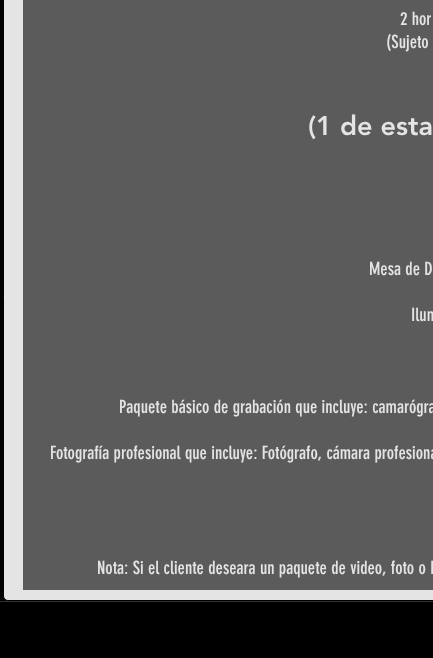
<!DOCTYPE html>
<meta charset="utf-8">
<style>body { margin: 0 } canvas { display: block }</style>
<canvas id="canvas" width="433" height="658"></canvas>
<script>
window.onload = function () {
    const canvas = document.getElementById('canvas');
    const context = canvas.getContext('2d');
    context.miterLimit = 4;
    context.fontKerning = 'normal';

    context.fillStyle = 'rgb(0, 0, 0)';
    context.fillRect(0, 0, 433, 658);
    context.fillStyle = 'rgb(228, 228, 228)';
    context.beginPath();
    context.roundRect(3.5, -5.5, 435, 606, 4.5);
    context.fill();
    context.strokeStyle = 'rgb(0, 0, 0)';
    context.stroke();
    context.fillStyle = 'rgb(91, 91, 91)';
    context.fillRect(23, 0, 410, 590);
    context.fillStyle = 'rgb(51, 51, 51)';
    context.fillRect(0, 601, 433, 1);
    context.font = '18px "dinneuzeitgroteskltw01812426"';
    context.fillStyle = 'rgb(228, 228, 228)';
    context.fillText('2 hor', 400, 25);
    context.fillText('(Sujeto', 386, 48);
    context.font = '900 27px "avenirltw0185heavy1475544"';
    context.fillText('(1 de esta', 308, 135);
    context.font = '18px "dinneuzeitgroteskltw01812426"';
    context.fillText('Mesa de D', 369, 275);
    context.fillText('Ilum', 411, 321);
    context.fillText('Paquete básico de grabación que incluye: camarógra', 119, 413);
    context.fillText('Fotografía profesional que incluye: Fotógrafo, cámara profesiona', 50, 459);
    context.fillText('Nota: Si el cliente deseara un paquete de video, foto o D', 97, 574);
};
</script>
